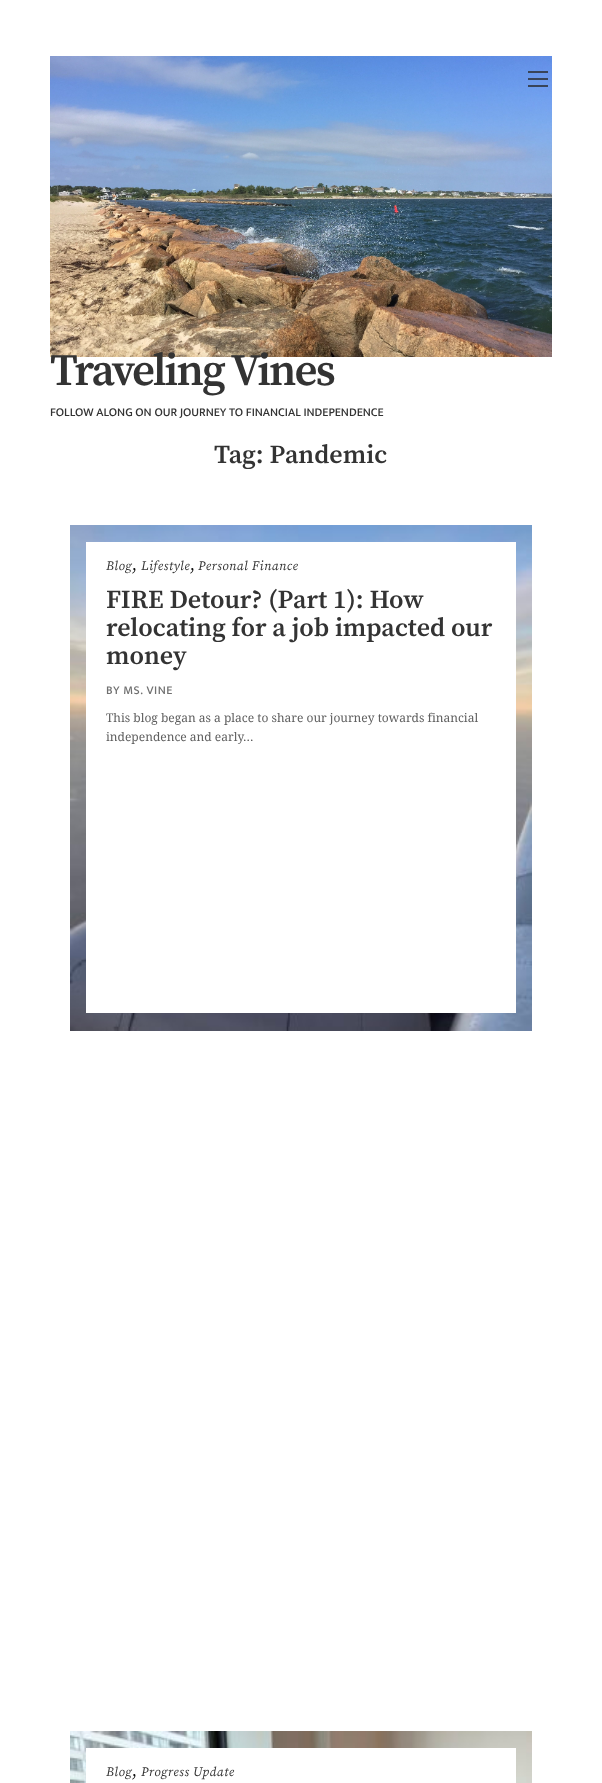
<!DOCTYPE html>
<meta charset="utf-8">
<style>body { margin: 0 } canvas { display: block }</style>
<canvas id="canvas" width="602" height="1783"></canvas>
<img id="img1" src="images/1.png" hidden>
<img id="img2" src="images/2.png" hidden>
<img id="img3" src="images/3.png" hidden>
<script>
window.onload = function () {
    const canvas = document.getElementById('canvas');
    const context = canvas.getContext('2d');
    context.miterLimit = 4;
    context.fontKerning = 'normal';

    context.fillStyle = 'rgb(255, 255, 255)';
    context.fillRect(0, 0, 602, 1783);
    context.drawImage(document.getElementById('img1'), 50, 56, 502, 301);
    context.fillStyle = 'rgb(57, 68, 89)';
    context.fillRect(528, 78, 20, 2);
    context.fillRect(528, 71, 20, 2);
    context.fillRect(528, 85, 20, 2);
    context.drawImage(document.getElementById('img2'), 70, 525, 462, 506);
    context.fillStyle = 'rgb(255, 255, 255)';
    context.fillRect(86, 542, 430, 471);
    context.drawImage(document.getElementById('img3'), 70, 1731, 462, 52);
    context.fillRect(86, 1748, 430, 35);
    context.letterSpacing = '-2px';
    context.font = '600 45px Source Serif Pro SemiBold';
    context.fillStyle = 'rgb(51, 51, 51)';
    context.fillText('Traveling Vines', 50, 385);
    context.letterSpacing = '0px';
    context.font = '500 12px Ek Mukta';
    context.fillText('FOLLOW ALONG ON OUR JOURNEY TO FINANCIAL INDEPENDENCE', 50, 416);
    context.font = '600 26px Source Serif Pro SemiBold';
    context.fillText('Tag: Pandemic', 214, 463);
    context.letterSpacing = '0.5px';
    context.font = 'italic 13px Source Serif Pro';
    context.fillText('Blog', 106, 570);
    context.letterSpacing = '0px';
    context.font = '16px Source Serif Pro';
    context.fillStyle = 'rgb(10, 10, 10)';
    context.fillText(',', 132, 570);
    context.letterSpacing = '0.5px';
    context.font = 'italic 13px Source Serif Pro';
    context.fillStyle = 'rgb(51, 51, 51)';
    context.fillText('Lifestyle', 141, 570);
    context.letterSpacing = '0px';
    context.font = '16px Source Serif Pro';
    context.fillStyle = 'rgb(10, 10, 10)';
    context.fillText(',', 190, 570);
    context.letterSpacing = '0.5px';
    context.font = 'italic 13px Source Serif Pro';
    context.fillStyle = 'rgb(51, 51, 51)';
    context.fillText('Personal Finance', 198, 570);
    context.letterSpacing = '0px';
    context.font = '600 26px Source Serif Pro SemiBold';
    context.fillText('FIRE Detour? (Part 1): How', 106, 608);
    context.fillText('relocating for a job impacted our', 106, 636);
    context.fillText('money', 106, 664);
    context.letterSpacing = '0.5px';
    context.font = '500 12px Ek Mukta';
    context.fillStyle = 'rgb(112, 112, 112)';
    context.fillText('BY MS. VINE', 106, 694);
    context.letterSpacing = '0px';
    context.font = '12px Droid Serif';
    context.fillStyle = 'rgb(95, 95, 95)';
    context.fillText('This blog began as a place to share our journey towards financial', 106, 722);
    context.fillText('independence and early...', 106, 741);
    context.letterSpacing = '0.5px';
    context.font = 'italic 13px Source Serif Pro';
    context.fillStyle = 'rgb(51, 51, 51)';
    context.fillText('Blog', 106, 1776);
    context.letterSpacing = '0px';
    context.font = '16px Source Serif Pro';
    context.fillStyle = 'rgb(10, 10, 10)';
    context.fillText(',', 132, 1776);
    context.letterSpacing = '0.5px';
    context.font = 'italic 13px Source Serif Pro';
    context.fillStyle = 'rgb(51, 51, 51)';
    context.fillText('Progress Update', 141, 1776);
};
</script>
